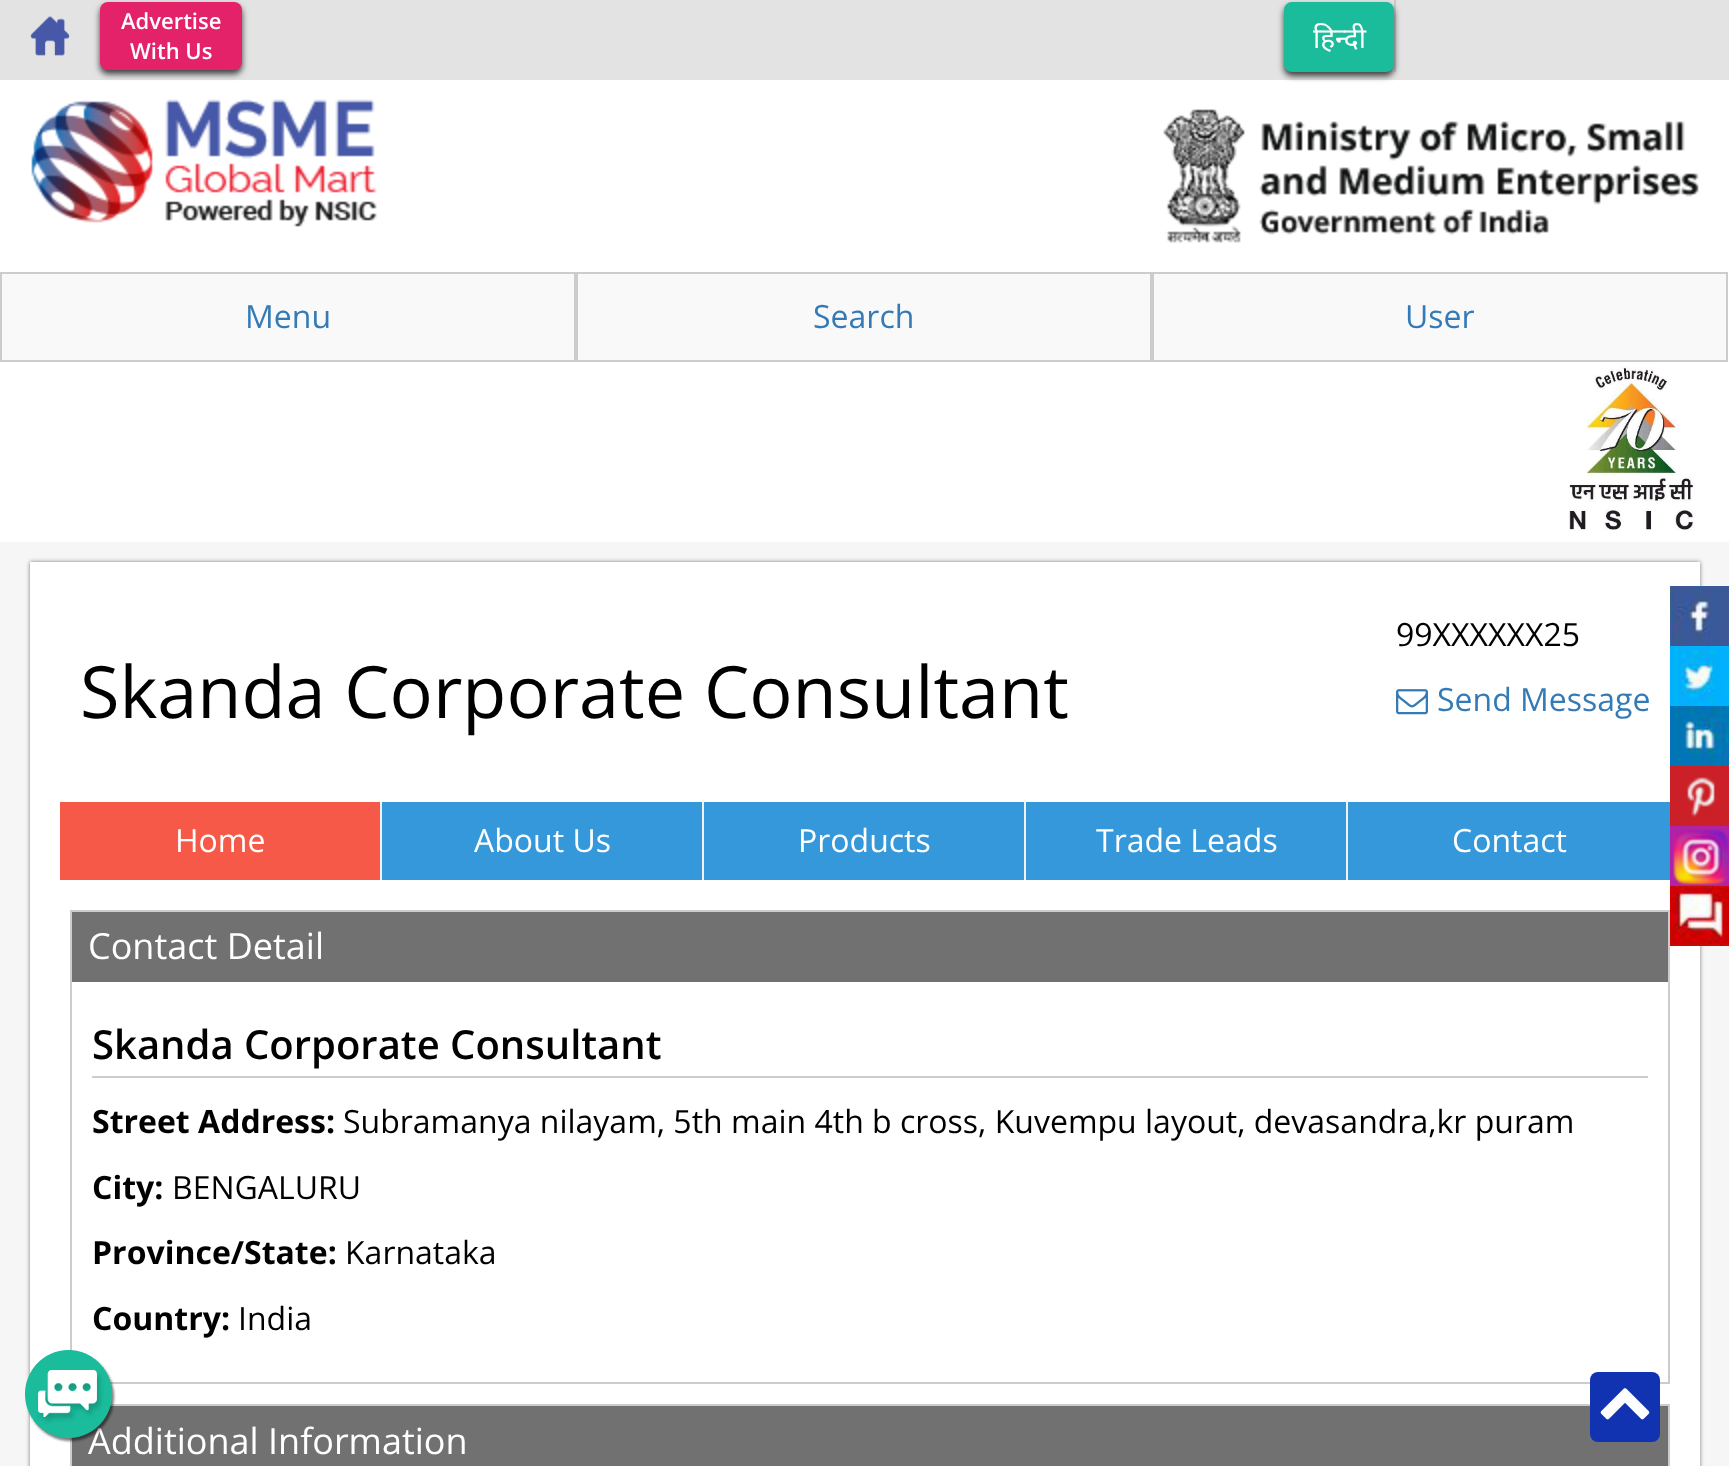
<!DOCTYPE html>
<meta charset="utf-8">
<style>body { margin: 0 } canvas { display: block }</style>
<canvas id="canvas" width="1729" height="1466"></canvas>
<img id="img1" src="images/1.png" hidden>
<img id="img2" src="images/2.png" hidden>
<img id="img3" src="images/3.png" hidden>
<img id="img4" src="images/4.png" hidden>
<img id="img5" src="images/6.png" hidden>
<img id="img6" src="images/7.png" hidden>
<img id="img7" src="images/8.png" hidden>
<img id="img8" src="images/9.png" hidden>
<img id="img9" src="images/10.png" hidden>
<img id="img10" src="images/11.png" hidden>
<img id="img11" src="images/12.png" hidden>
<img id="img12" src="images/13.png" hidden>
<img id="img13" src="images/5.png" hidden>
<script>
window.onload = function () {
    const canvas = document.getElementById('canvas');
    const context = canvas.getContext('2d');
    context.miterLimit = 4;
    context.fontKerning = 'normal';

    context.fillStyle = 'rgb(246, 246, 246)';
    context.fillRect(0, 0, 1729, 1466);
    context.fillStyle = 'rgb(227, 227, 227)';
    context.fillRect(0, 0, 1729, 80);
    context.drawImage(document.getElementById('img1'), 30, 16, 40, 40);
    context.fillStyle = 'rgb(255, 255, 255)';
    context.fillRect(0, 80, 1729, 462);
    context.fillStyle = 'rgb(62, 61, 61)';
    context.filter = 'blur(3px)';
    context.beginPath();
    context.roundRect(100, 6, 142, 68, 8);
    context.fill();
    context.filter = 'none';
    context.fillStyle = 'rgb(227, 34, 105)';
    context.beginPath();
    context.roundRect(100, 2, 142, 68, 8);
    context.fill();
    context.fillStyle = 'rgb(202, 202, 202)';
    context.fillRect(1394, 0, 2, 72);
    context.fillStyle = 'rgb(62, 61, 61)';
    context.filter = 'blur(3px)';
    context.beginPath();
    context.roundRect(1284, 6, 110, 70, 8);
    context.fill();
    context.filter = 'none';
    context.fillStyle = 'rgb(26, 188, 156)';
    context.beginPath();
    context.roundRect(1285, 3, 108, 68, 7);
    context.fill();
    context.strokeStyle = 'rgb(26, 188, 156)';
    context.lineWidth = 2;
    context.stroke();
    context.drawImage(document.getElementById('img2'), 31, 99, 346, 128);
    context.drawImage(document.getElementById('img3'), 1163, 109, 536, 134);
    context.fillStyle = 'rgb(249, 249, 249)';
    context.beginPath();
    context.rect(1, 273, 574, 88);
    context.fill();
    context.strokeStyle = 'rgb(204, 204, 204)';
    context.stroke();
    context.beginPath();
    context.rect(577, 273, 574, 88);
    context.fill();
    context.stroke();
    context.beginPath();
    context.rect(1153, 273, 574, 88);
    context.fill();
    context.stroke();
    context.drawImage(document.getElementById('img4'), 1568, 366, 127, 165);
    context.fillStyle = 'rgba(0, 0, 0, 0.5)';
    context.filter = 'blur(2px)';
    context.beginPath();
    context.rect(30, 562, 1670, 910);
    context.fill();
    context.filter = 'none';
    context.fillStyle = 'rgb(255, 255, 255)';
    context.fillRect(30, 562, 1670, 904);
    context.drawImage(document.getElementById('img5'), 1396, 689, 32, 26);
    context.fillStyle = 'rgb(52, 152, 219)';
    context.fillRect(382, 802, 1288, 78);
    context.fillStyle = 'rgb(246, 89, 72)';
    context.fillRect(60, 802, 320, 78);
    context.fillStyle = 'rgb(242, 242, 242)';
    context.fillRect(380, 802, 2, 78);
    context.fillRect(702, 802, 2, 78);
    context.fillRect(1024, 802, 2, 78);
    context.fillRect(1346, 802, 2, 78);
    context.strokeRect(71, 911, 1598, 472);
    context.fillStyle = 'rgb(113, 113, 113)';
    context.fillRect(72, 912, 1596, 70);
    context.fillStyle = 'rgb(204, 204, 204)';
    context.fillRect(92, 1076, 1556, 2);
    context.strokeRect(71, 1405, 1598, 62);
    context.fillStyle = 'rgb(113, 113, 113)';
    context.fillRect(72, 1406, 1596, 60);
    context.drawImage(document.getElementById('img6'), 1670, 586, 59, 60);
    context.fillStyle = 'rgb(1, 177, 253)';
    context.fillRect(1670, 646, 4, 60);
    context.drawImage(document.getElementById('img7'), 1674, 646, 55, 60);
    context.drawImage(document.getElementById('img8'), 1670, 706, 59, 60);
    context.fillStyle = 'rgb(203, 32, 39)';
    context.fillRect(1670, 766, 59, 60);
    context.drawImage(document.getElementById('img9'), 1687, 777, 28, 40);
    context.fillStyle = 'rgb(176, 35, 167)';
    context.fillRect(1670, 826, 59, 60);
    context.drawImage(document.getElementById('img10'), 1673, 829, 56, 56);
    context.drawImage(document.getElementById('img11'), 1670, 886, 59, 60);
    context.fillStyle = 'rgb(17, 51, 177)';
    context.beginPath();
    context.roundRect(1590, 1372, 70, 70, 8);
    context.fill();
    context.drawImage(document.getElementById('img12'), 1600, 1388, 50, 32);
    context.font = '600 22px Open Sans';
    context.fillStyle = 'rgb(255, 255, 255)';
    context.fillText('Advertise', 121, 29);
    context.fillText('With Us', 130, 59);
    context.font = '28px Noto Sans';
    context.fillText('हिन्दी', 1313, 48);
    context.font = '32px Open Sans';
    context.fillStyle = 'rgb(51, 122, 183)';
    context.fillText('Menu', 245, 328);
    context.fillText('Search', 813, 328);
    context.fillText('User', 1405, 328);
    context.font = '72px Open Sans';
    context.fillStyle = 'rgb(0, 0, 0)';
    context.fillText('Skanda Corporate Consultant', 80, 718);
    context.font = '32px Open Sans';
    context.fillText('99XXXXXX25', 1396, 646);
    context.fillStyle = 'rgb(51, 122, 183)';
    context.fillText('Send Message', 1437, 711);
    context.fillStyle = 'rgb(255, 255, 255)';
    context.fillText('Home', 175, 852);
    context.fillText('About Us', 474, 852);
    context.fillText('Products', 798, 852);
    context.fillText('Trade Leads', 1096, 852);
    context.fillText('Contact', 1452, 852);
    context.font = '36px Open Sans';
    context.fillText('Contact Detail', 88, 959);
    context.font = '600 40px Open Sans';
    context.fillStyle = 'rgb(0, 0, 0)';
    context.fillText('Skanda Corporate Consultant', 92, 1059);
    context.font = 'bold 32px Open Sans';
    context.fillText('Street Address:', 92, 1133);
    context.font = '32px Open Sans';
    context.fillText('Subramanya nilayam, 5th main 4th b cross, Kuvempu layout, devasandra,kr puram', 343, 1133);
    context.font = 'bold 32px Open Sans';
    context.fillText('City:', 92, 1199);
    context.font = '32px Open Sans';
    context.fillText('BENGALURU', 172, 1199);
    context.font = 'bold 32px Open Sans';
    context.fillText('Province/State:', 92, 1264);
    context.font = '32px Open Sans';
    context.fillText('Karnataka', 345, 1264);
    context.font = 'bold 32px Open Sans';
    context.fillText('Country:', 92, 1330);
    context.font = '32px Open Sans';
    context.fillText('India', 238, 1330);
    context.font = '36px Open Sans';
    context.fillStyle = 'rgb(255, 255, 255)';
    context.fillText('Additional Information', 88, 1454);
    context.drawImage(document.getElementById('img13'), 25, 1350, 91, 93);
};
</script>
